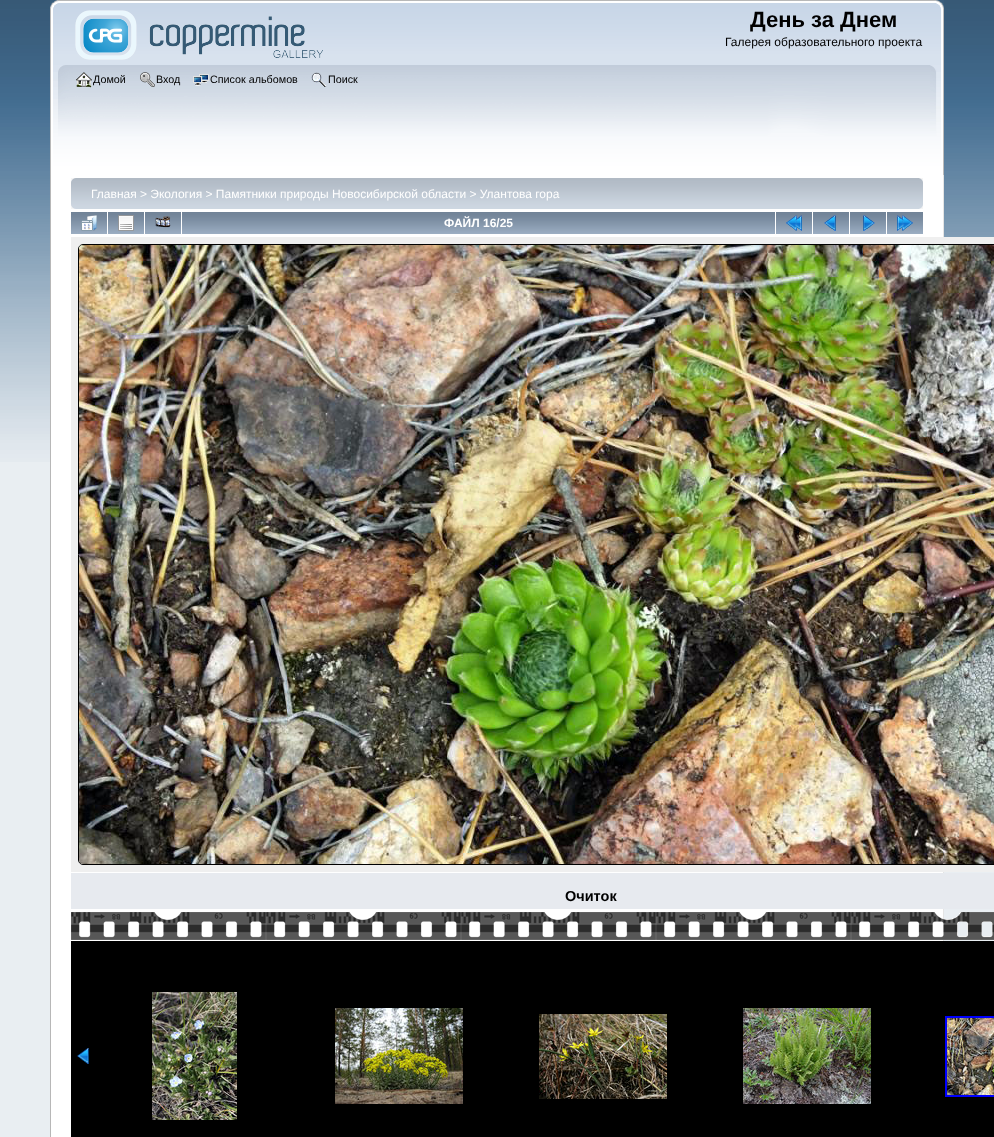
<!DOCTYPE html>
<meta charset="utf-8">
<style>body { margin: 0 } canvas { display: block }</style>
<canvas id="canvas" width="994" height="1137"></canvas>
<img id="img1" src="images/1.png" hidden>
<img id="img2" src="images/2.png" hidden>
<img id="img3" src="images/3.png" hidden>
<img id="img4" src="images/4.png" hidden>
<img id="img5" src="images/5.png" hidden>
<img id="img6" src="images/6.png" hidden>
<img id="img7" src="images/7.png" hidden>
<img id="img8" src="images/8.png" hidden>
<img id="img9" src="images/9.png" hidden>
<img id="img10" src="images/10.png" hidden>
<img id="img11" src="images/11.png" hidden>
<img id="img12" src="images/12.png" hidden>
<img id="img13" src="images/13.png" hidden>
<img id="img14" src="images/14.png" hidden>
<img id="img15" src="images/15.png" hidden>
<img id="img16" src="images/16.png" hidden>
<img id="img17" src="images/17.png" hidden>
<img id="img18" src="images/18.png" hidden>
<img id="img19" src="images/19.png" hidden>
<img id="img20" src="images/20.png" hidden>
<img id="img21" src="images/21.png" hidden>
<img id="img22" src="images/22.png" hidden>
<img id="img23" src="images/23.png" hidden>
<img id="img24" src="images/24.png" hidden>
<img id="img25" src="images/25.png" hidden>
<img id="img26" src="images/26.png" hidden>
<img id="img27" src="images/27.png" hidden>
<img id="img28" src="images/28.png" hidden>
<img id="img29" src="images/29.png" hidden>
<script>
window.onload = function () {
    const canvas = document.getElementById('canvas');
    const context = canvas.getContext('2d');
    context.miterLimit = 4;
    context.fontKerning = 'normal';

    context.fillStyle = 'rgb(233, 238, 242)';
    context.fillRect(0, 0, 994, 1137);
    context.drawImage(document.getElementById('img1'), 0, 0, 994, 462);
    context.drawImage(document.getElementById('img2'), 50, 0, 886, 65);
    context.drawImage(document.getElementById('img3'), 936, 0, 8, 65);
    context.drawImage(document.getElementById('img4'), 75, 10, 248, 50);
    context.drawImage(document.getElementById('img5'), 50, 65, 880, 110);
    context.drawImage(document.getElementById('img6'), 930, 65, 14, 110);
    context.drawImage(document.getElementById('img7'), 76, 72, 16, 16);
    context.drawImage(document.getElementById('img8'), 140, 72, 15, 15);
    context.drawImage(document.getElementById('img9'), 193, 74, 16, 12);
    context.drawImage(document.getElementById('img10'), 311, 72, 16, 15);
    context.fillStyle = 'rgb(255, 255, 255)';
    context.fillRect(51, 175, 892, 962);
    context.fillStyle = 'rgb(183, 183, 183)';
    context.fillRect(50, 175, 1, 962);
    context.fillStyle = 'rgb(228, 228, 228)';
    context.fillRect(943, 175, 1, 766);
    context.drawImage(document.getElementById('img11'), 71, 178, 848, 31);
    context.drawImage(document.getElementById('img12'), 919, 178, 4, 31);
    context.drawImage(document.getElementById('img13'), 71, 212, 36, 22);
    context.drawImage(document.getElementById('img14'), 81, 215, 16, 16);
    context.drawImage(document.getElementById('img13'), 108, 212, 36, 22);
    context.drawImage(document.getElementById('img15'), 118, 215, 16, 16);
    context.drawImage(document.getElementById('img13'), 145, 212, 36, 22);
    context.drawImage(document.getElementById('img16'), 155, 216, 16, 12);
    context.drawImage(document.getElementById('img17'), 182, 212, 593, 22);
    context.drawImage(document.getElementById('img13'), 776, 212, 36, 22);
    context.drawImage(document.getElementById('img18'), 786, 215, 16, 16);
    context.drawImage(document.getElementById('img13'), 813, 212, 36, 22);
    context.drawImage(document.getElementById('img19'), 824, 215, 12, 16);
    context.drawImage(document.getElementById('img13'), 850, 212, 36, 22);
    context.drawImage(document.getElementById('img20'), 863, 215, 12, 16);
    context.drawImage(document.getElementById('img13'), 887, 212, 36, 22);
    context.drawImage(document.getElementById('img21'), 897, 215, 16, 16);
    context.fillStyle = 'rgb(239, 239, 239)';
    context.fillRect(71, 237, 923, 635);
    context.beginPath();
    context.roundRect(78.5, 244.5, 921, 620, 4.5);
    context.strokeStyle = 'rgb(0, 0, 0)';
    context.stroke();
    context.drawImage(document.getElementById('img22'), 79, 245, 915, 619);
    context.fillStyle = 'rgb(231, 234, 239)';
    context.fillRect(71, 873, 923, 36);
    context.drawImage(document.getElementById('img23'), 71, 912, 923, 28);
    context.fillStyle = 'rgb(0, 0, 0)';
    context.fillRect(71, 941, 923, 196);
    context.drawImage(document.getElementById('img24'), 77, 1048, 12, 16);
    context.drawImage(document.getElementById('img25'), 152, 992, 85, 128);
    context.drawImage(document.getElementById('img26'), 335, 1008, 128, 96);
    context.drawImage(document.getElementById('img27'), 539, 1014, 128, 85);
    context.drawImage(document.getElementById('img28'), 743, 1008, 128, 96);
    context.strokeStyle = 'rgb(0, 0, 255)';
    context.lineWidth = 2;
    context.strokeRect(946, 1017, 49, 79);
    context.drawImage(document.getElementById('img29'), 947, 1018, 47, 77);
    context.font = 'bold 22px Liberation Sans';
    context.fillText('День за Днем', 750, 27);
    context.font = '12px Liberation Sans';
    context.fillText('Галерея образовательного проекта', 725, 46);
    context.font = '10.75px Liberation Sans';
    context.fillText('Домой', 93, 83);
    context.fillText('Вход', 156, 83);
    context.fillText('Список альбомов', 210, 83);
    context.fillText('Поиск', 328, 83);
    context.font = '12px Liberation Sans';
    context.fillStyle = 'rgb(255, 255, 255)';
    context.fillText('Главная > Экология > Памятники природы Новосибирской области > Улантова гора', 91, 198);
    context.font = 'bold 12px Liberation Sans';
    context.fillText('ФАЙЛ 16/25', 444, 227);
    context.font = 'bold 14.5px Liberation Sans';
    context.fillStyle = 'rgb(0, 0, 0)';
    context.fillText('Очиток', 565, 901);
};
</script>
